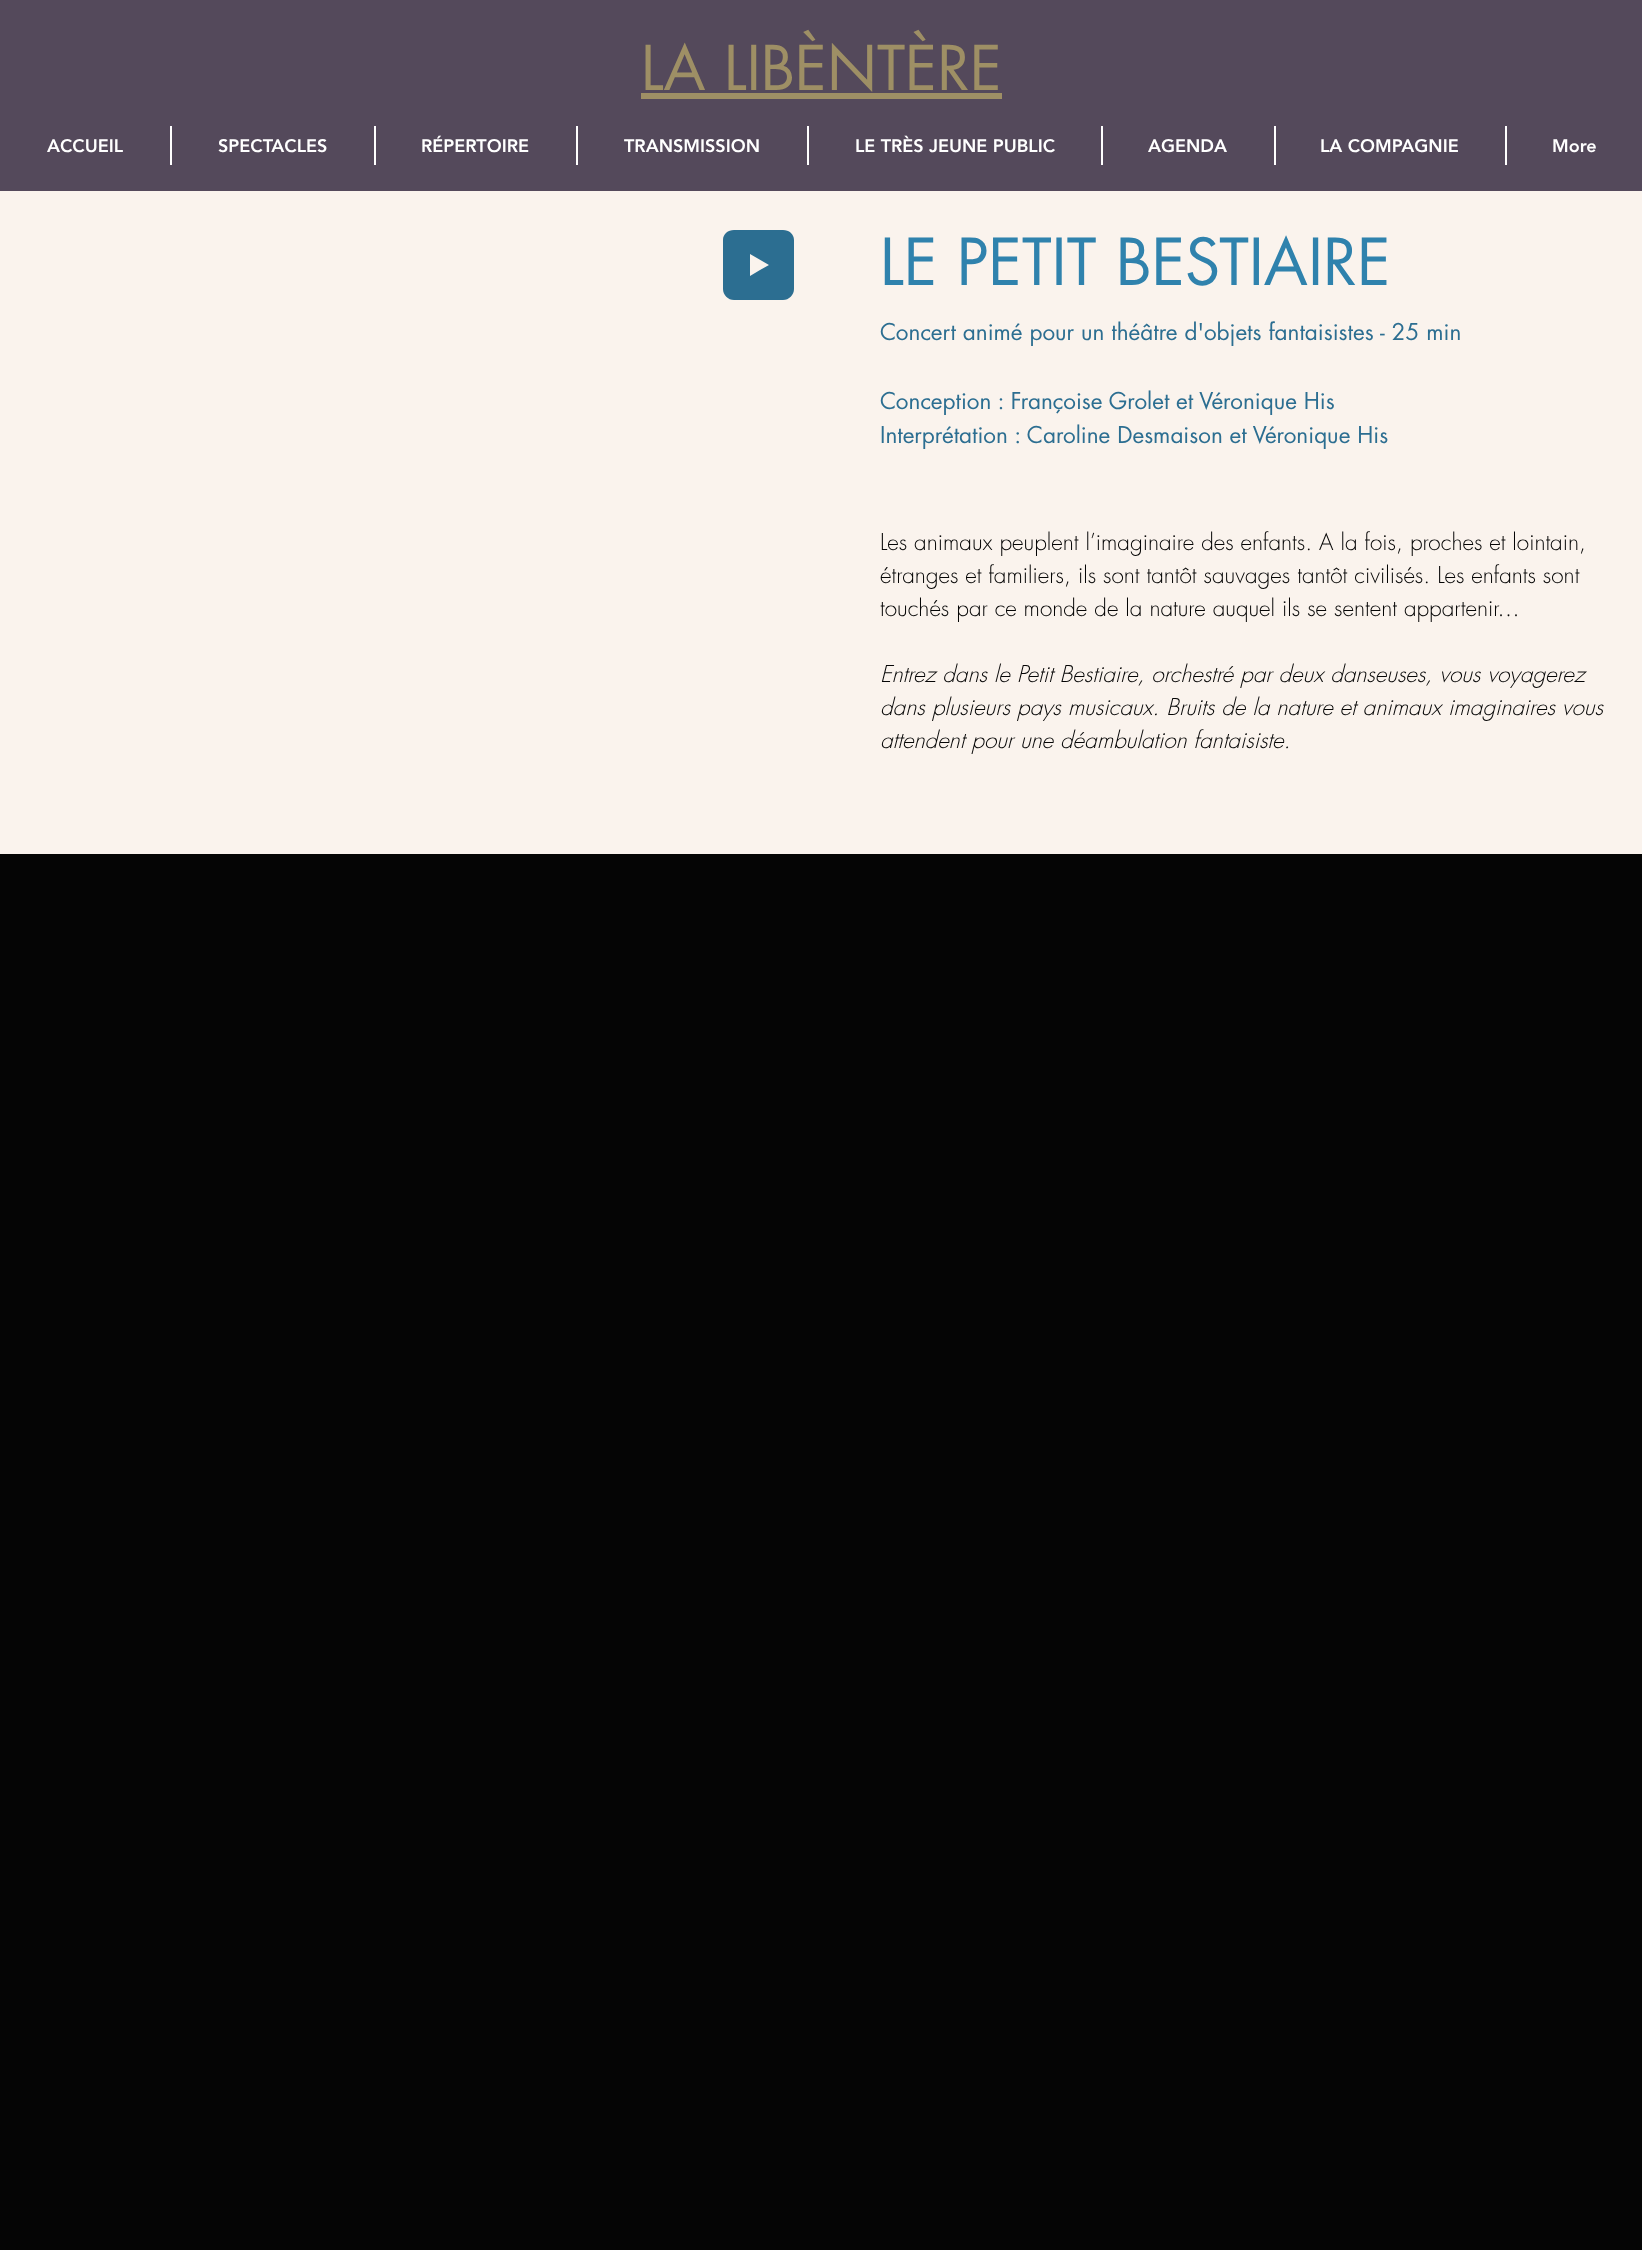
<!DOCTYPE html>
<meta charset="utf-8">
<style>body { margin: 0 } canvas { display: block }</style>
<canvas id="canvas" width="1642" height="2250"></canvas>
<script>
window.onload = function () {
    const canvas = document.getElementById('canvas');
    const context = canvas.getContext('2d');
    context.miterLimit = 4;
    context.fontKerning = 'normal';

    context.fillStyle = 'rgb(5, 5, 5)';
    context.fillRect(0, 0, 1642, 2250);
    context.fillStyle = 'rgb(84, 73, 91)';
    context.fillRect(0, 0, 1642, 191);
    context.fillStyle = 'rgb(158, 143, 101)';
    context.fillRect(641, 93, 361, 6);
    context.fillStyle = 'rgb(255, 255, 255)';
    context.fillRect(170, 126, 2, 39);
    context.fillRect(374, 126, 2, 39);
    context.fillRect(576, 126, 2, 39);
    context.fillRect(807, 126, 2, 39);
    context.fillRect(1101, 126, 2, 39);
    context.fillRect(1274, 126, 2, 39);
    context.fillRect(1505, 126, 2, 39);
    context.fillStyle = 'rgb(250, 243, 237)';
    context.fillRect(0, 191, 1642, 663);
    context.fillStyle = 'rgb(44, 110, 145)';
    context.beginPath();
    context.moveTo(760, 270);
    context.lineTo(750, 276);
    context.lineTo(750, 254);
    context.lineTo(769, 265);
    context.closePath();
    context.moveTo(783, 230);
    context.lineTo(734, 230);
    context.bezierCurveTo(728, 230, 723, 234, 723, 240);
    context.lineTo(723, 289);
    context.bezierCurveTo(723, 295, 728, 300, 734, 300);
    context.lineTo(783, 300);
    context.bezierCurveTo(789, 300, 794, 295, 794, 289);
    context.lineTo(794, 240);
    context.bezierCurveTo(794, 234, 789, 230, 783, 230);
    context.closePath();
    context.fill();
    context.font = '60px futura';
    context.fillStyle = 'rgb(158, 143, 101)';
    context.fillText('LA LIBÈNTÈRE', 641, 90);
    context.font = '900 18px "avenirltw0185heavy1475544"';
    context.fillStyle = 'rgb(255, 255, 255)';
    context.fillText('ACCUEIL', 47, 152);
    context.fillText('SPECTACLES', 218, 152);
    context.fillText('RÉPERTOIRE', 421, 152);
    context.fillText('TRANSMISSION', 624, 152);
    context.fillText('LE TRÈS JEUNE PUBLIC', 855, 152);
    context.fillText('AGENDA', 1148, 152);
    context.fillText('LA COMPAGNIE', 1320, 152);
    context.fillText('More', 1552, 152);
    context.font = '63px futura';
    context.fillStyle = 'rgb(47, 130, 173)';
    context.fillText('LE PETIT BESTIAIRE', 880, 285);
    context.font = '22.5px futura';
    context.fillStyle = 'rgb(44, 110, 145)';
    context.fillText('Concert animé pour un théâtre d\'objets fantaisistes', 880, 340);
    context.fillText('- 25 min', 1380, 340);
    context.fillText('Conception : Françoise Grolet et Véronique His', 880, 409);
    context.fillText('Interprétation : Caroline Desmaison et Véronique His', 880, 443);
    context.font = '300 22.5px futura';
    context.fillStyle = 'rgb(5, 5, 5)';
    context.fillText('Les animaux peuplent l’imaginaire des enfants. A la fois, proches et lointain,', 880, 550);
    context.fillText('étranges et familiers, ils sont tantôt sauvages tantôt civilisés. Les enfants sont', 880, 583);
    context.fillText('touchés par ce monde de la nature auquel ils se sentent appartenir…', 880, 616);
    context.font = 'italic 300 22.5px futura';
    context.fillText('Entrez dans le Petit Bestiaire, orchestré par deux danseuses, vous voyagerez', 880, 682);
    context.fillText('dans plusieurs pays musicaux. Bruits de la nature et animaux imaginaires vous', 880, 715);
    context.fillText('attendent pour une déambulation fantaisiste.', 880, 748);
};
</script>
